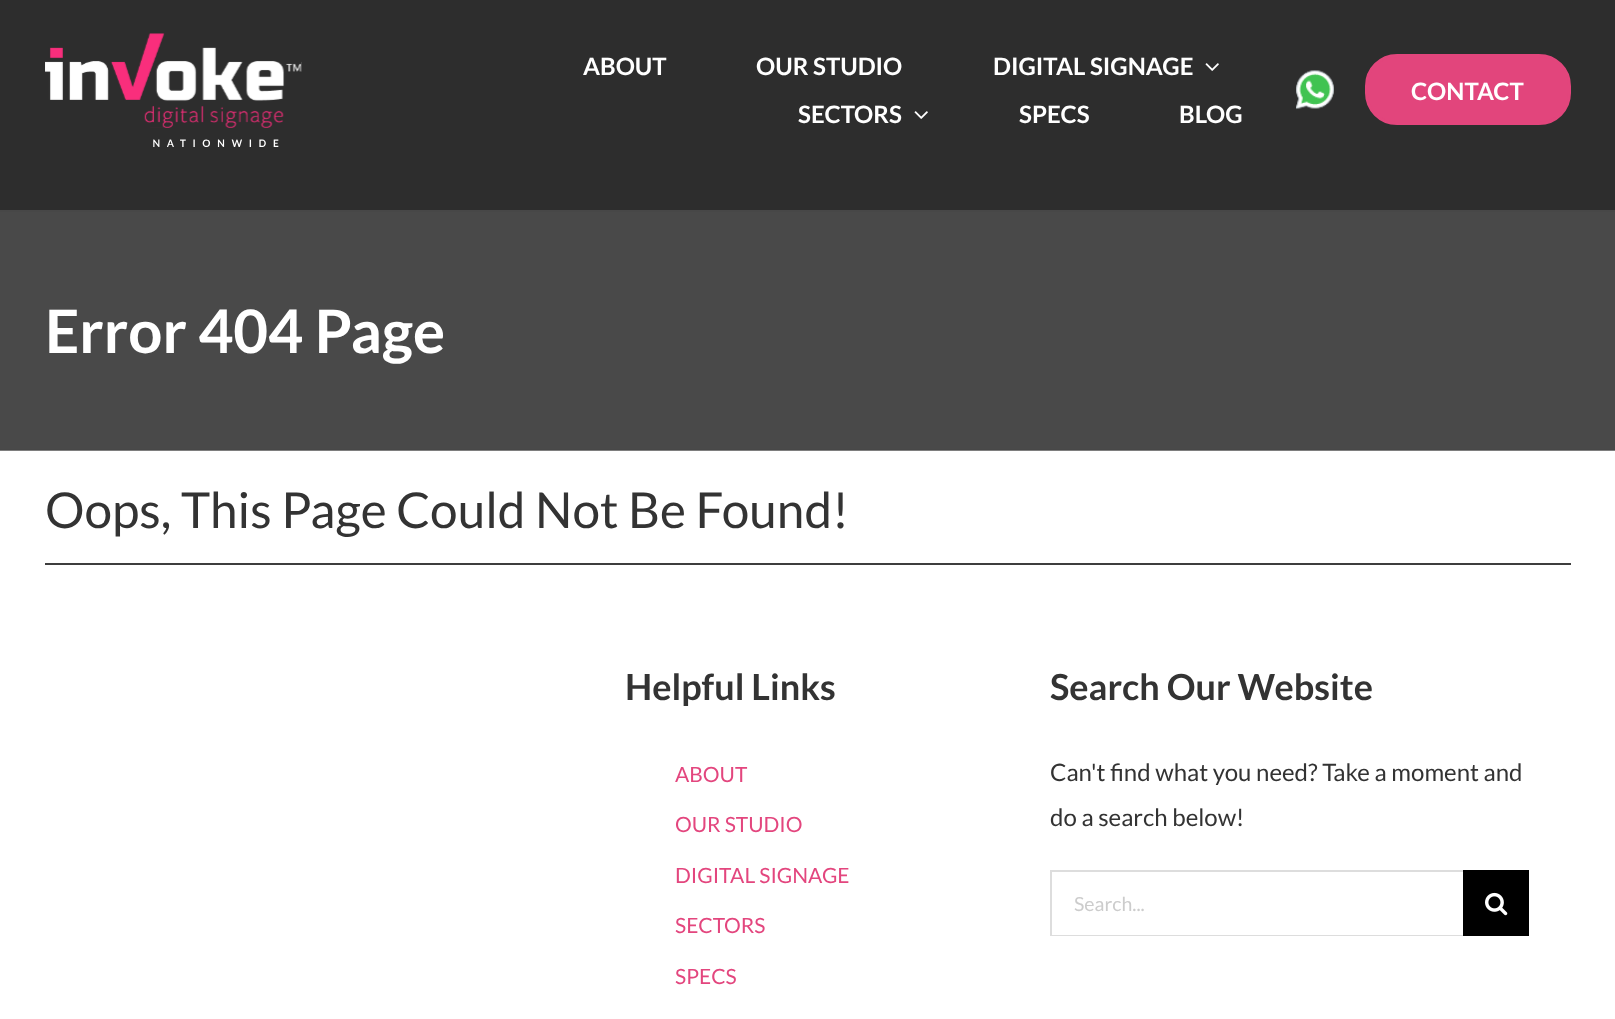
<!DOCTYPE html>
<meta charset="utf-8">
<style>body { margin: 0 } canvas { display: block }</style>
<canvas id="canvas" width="1615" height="1019"></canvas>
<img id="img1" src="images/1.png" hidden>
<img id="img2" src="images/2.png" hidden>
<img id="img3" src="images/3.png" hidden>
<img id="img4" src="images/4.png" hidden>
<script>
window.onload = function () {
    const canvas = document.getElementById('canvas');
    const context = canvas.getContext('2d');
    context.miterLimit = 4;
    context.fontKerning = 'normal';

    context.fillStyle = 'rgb(255, 255, 255)';
    context.fillRect(0, 0, 1615, 1019);
    context.fillStyle = 'rgb(126, 126, 126)';
    context.fillRect(0, 450, 1615, 1);
    context.fillStyle = 'rgb(45, 45, 45)';
    context.fillRect(0, 0, 1615, 210);
    context.drawImage(document.getElementById('img1'), 45, 33, 257, 114);
    context.drawImage(document.getElementById('img2'), 1205, 63, 14, 8);
    context.drawImage(document.getElementById('img2'), 914, 111, 14, 8);
    context.drawImage(document.getElementById('img3'), 1296, 70, 38, 40);
    context.fillStyle = 'rgb(226, 69, 124)';
    context.beginPath();
    context.roundRect(1366.5, 55.5, 203, 68, 30.5);
    context.fill();
    context.strokeStyle = 'rgb(226, 69, 124)';
    context.lineWidth = 3;
    context.stroke();
    context.fillStyle = 'rgb(73, 73, 73)';
    context.fillRect(0, 212, 1615, 237);
    context.fillStyle = 'rgb(71, 71, 71)';
    context.fillRect(0, 449, 1615, 1);
    context.fillRect(0, 210, 1615, 2);
    context.fillStyle = 'rgb(62, 62, 62)';
    context.fillRect(45, 563, 1526, 2);
    context.fillStyle = 'rgb(221, 221, 221)';
    context.fillRect(1050, 870, 413, 2);
    context.fillRect(1050, 935, 413, 1);
    context.fillRect(1050, 870, 2, 66);
    context.fillStyle = 'rgb(0, 0, 0)';
    context.fillRect(1463, 870, 66, 66);
    context.drawImage(document.getElementById('img4'), 1485, 892, 23, 24);
    context.font = 'bold 24px Lato';
    context.fillStyle = 'rgb(255, 255, 255)';
    context.fillText('ABOUT', 583, 75);
    context.fillText('OUR STUDIO', 756, 75);
    context.fillText('DIGITAL SIGNAGE', 993, 75);
    context.fillText('SECTORS', 798, 123);
    context.fillText('SPECS', 1019, 123);
    context.fillText('BLOG', 1179, 123);
    context.fillText('CONTACT', 1411, 100);
    context.font = 'bold 60px Lato';
    context.fillText('Error 404 Page', 45, 353);
    context.font = '49.5px Lato';
    context.fillStyle = 'rgb(51, 51, 51)';
    context.fillText('Oops, This Page Could Not Be Found!', 45, 528);
    context.font = 'bold 36px Lato';
    context.fillText('Helpful Links', 625, 700);
    context.font = '21px Lato';
    context.fillStyle = 'rgb(227, 70, 126)';
    context.fillText('ABOUT', 675, 782);
    context.fillText('OUR STUDIO', 675, 832);
    context.fillText('DIGITAL SIGNAGE', 675, 883);
    context.fillText('SECTORS', 675, 933);
    context.fillText('SPECS', 675, 984);
    context.font = 'bold 36px Lato';
    context.fillStyle = 'rgb(51, 51, 51)';
    context.fillText('Search Our Website', 1050, 700);
    context.font = '24px Lato';
    context.fillText('Can\'t find what you need? Take a moment and', 1050, 781);
    context.fillText('do a search below!', 1050, 826);
    context.font = '19.5px Lato';
    context.fillStyle = 'rgb(204, 204, 204)';
    context.fillText('Search...', 1074, 911);
};
</script>
